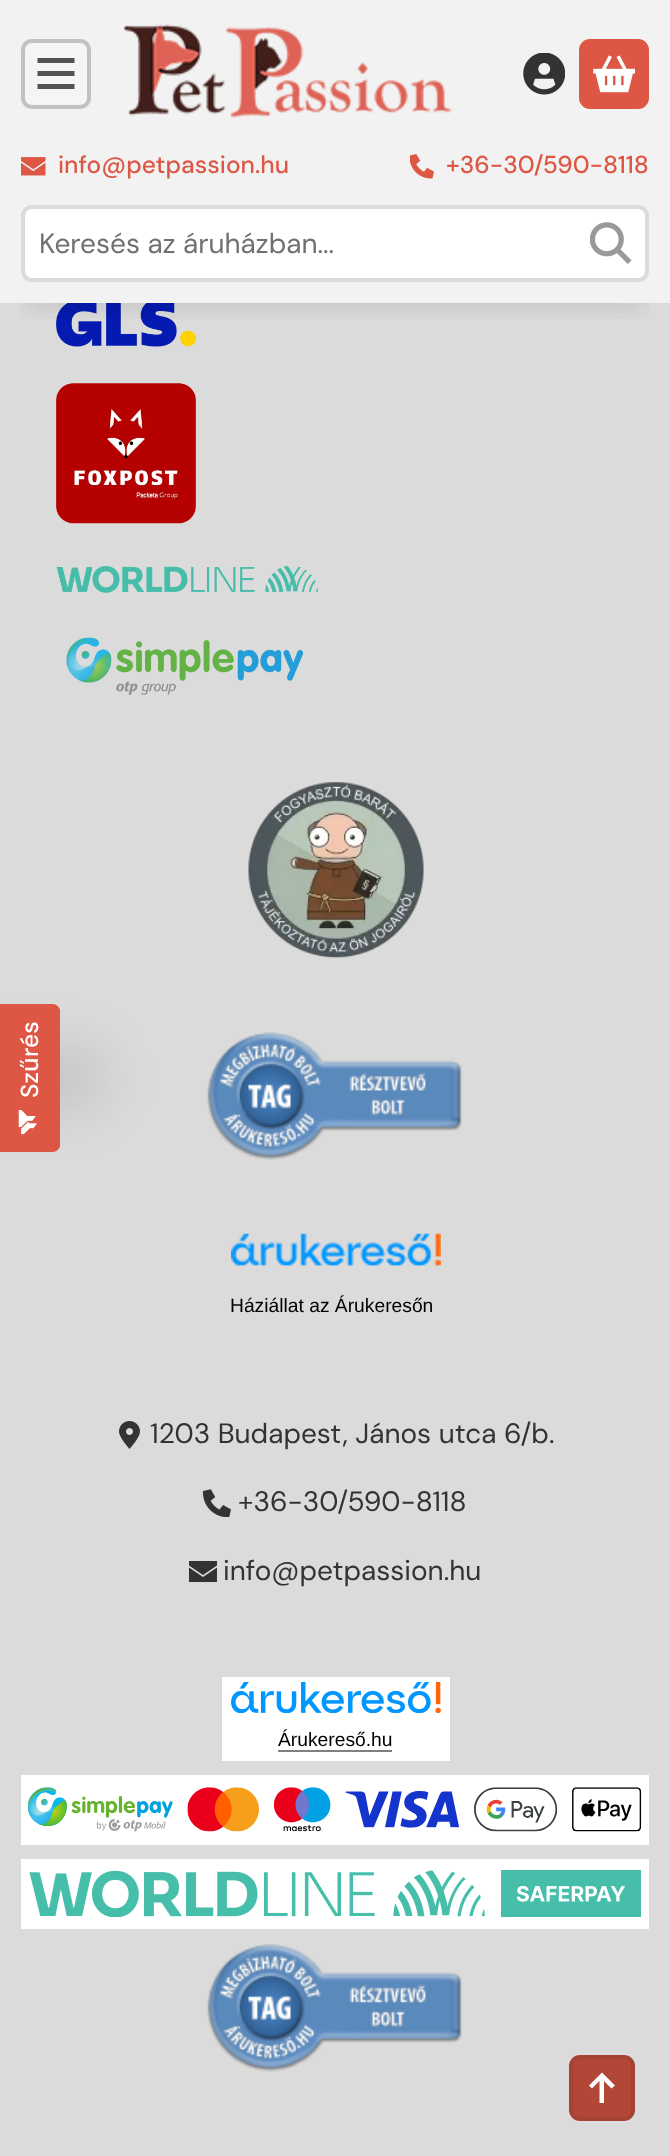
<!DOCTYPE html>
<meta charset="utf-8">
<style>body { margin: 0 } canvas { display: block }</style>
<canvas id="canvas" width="670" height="2156"></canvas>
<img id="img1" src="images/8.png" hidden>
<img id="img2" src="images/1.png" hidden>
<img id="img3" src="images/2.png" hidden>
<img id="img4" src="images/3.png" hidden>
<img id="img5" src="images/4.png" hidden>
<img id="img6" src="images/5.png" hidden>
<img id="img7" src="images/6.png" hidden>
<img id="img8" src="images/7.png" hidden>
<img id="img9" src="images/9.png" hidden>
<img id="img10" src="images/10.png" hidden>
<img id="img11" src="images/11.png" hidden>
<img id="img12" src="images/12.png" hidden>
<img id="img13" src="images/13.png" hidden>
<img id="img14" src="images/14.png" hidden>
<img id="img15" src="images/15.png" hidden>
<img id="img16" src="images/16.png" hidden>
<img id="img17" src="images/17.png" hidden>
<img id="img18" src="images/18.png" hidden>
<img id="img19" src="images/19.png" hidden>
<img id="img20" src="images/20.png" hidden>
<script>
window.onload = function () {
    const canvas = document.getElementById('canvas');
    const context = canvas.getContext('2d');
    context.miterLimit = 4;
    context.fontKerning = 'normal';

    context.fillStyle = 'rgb(219, 219, 219)';
    context.fillRect(0, 0, 670, 2156);
    context.fillStyle = 'rgb(242, 242, 242)';
    context.fillRect(0, 0, 670, 303);
    context.drawImage(document.getElementById('img1'), 56, 303, 140, 44);
    context.save();
    context.beginPath();
    context.rect(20, 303, 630, 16);
    context.clip();
    context.fillStyle = 'rgba(0, 0, 0, 0.15)';
    context.filter = 'blur(14px)';
    context.beginPath();
    context.rect(28, 56, 614, 247);
    context.fill();
    context.filter = 'none';
    context.restore();
    context.fillStyle = 'rgb(245, 245, 245)';
    context.beginPath();
    context.roundRect(23, 41, 66, 66, 9);
    context.fill();
    context.strokeStyle = 'rgb(194, 194, 194)';
    context.lineWidth = 4;
    context.stroke();
    context.fillStyle = 'rgb(82, 82, 82)';
    context.beginPath();
    context.moveTo(37.5, 58);
    context.lineTo(74.5, 58);
    context.lineTo(74.5, 63);
    context.lineTo(37.5, 63);
    context.closePath();
    context.moveTo(37.5, 71);
    context.lineTo(74.5, 71);
    context.lineTo(74.5, 76);
    context.lineTo(37.5, 76);
    context.closePath();
    context.moveTo(74.5, 84);
    context.lineTo(74.5, 89);
    context.lineTo(37.5, 89);
    context.lineTo(37.5, 84);
    context.closePath();
    context.fill();
    context.drawImage(document.getElementById('img2'), 123, 24, 329, 94);
    context.drawImage(document.getElementById('img3'), 523, 53, 42, 42);
    context.fillStyle = 'rgb(222, 87, 69)';
    context.beginPath();
    context.roundRect(581, 41, 66, 66, 9);
    context.fill();
    context.strokeStyle = 'rgb(222, 87, 69)';
    context.stroke();
    context.drawImage(document.getElementById('img4'), 593, 55, 42, 38);
    context.drawImage(document.getElementById('img5'), 21, 157, 25, 19);
    context.drawImage(document.getElementById('img6'), 410, 154, 24, 25);
    context.fillStyle = 'rgb(255, 255, 255)';
    context.beginPath();
    context.roundRect(23, 207, 624, 73, 9);
    context.fill();
    context.strokeStyle = 'rgb(219, 219, 219)';
    context.stroke();
    context.drawImage(document.getElementById('img7'), 590, 222, 42, 42);
    context.fillStyle = 'rgba(0, 0, 0, 0.1)';
    context.filter = 'blur(26px)';
    context.beginPath();
    context.roundRect(-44, 1048, 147, 60, 7);
    context.fill();
    context.filter = 'none';
    context.fillStyle = 'rgb(222, 87, 69)';
    context.beginPath();
    context.moveTo(0, 1152);
    context.lineTo(0, 1004);
    context.lineTo(52, 1004);
    context.bezierCurveTo(56, 1004, 60, 1007, 60, 1011);
    context.lineTo(60, 1145);
    context.bezierCurveTo(60, 1149, 56, 1152, 52, 1152);
    context.closePath();
    context.fill();
    context.beginPath();
    context.moveTo(2, 1150);
    context.lineTo(2, 1006);
    context.lineTo(52.5, 1006);
    context.bezierCurveTo(55.5, 1006, 58, 1008.5, 58, 1011);
    context.lineTo(58, 1145);
    context.bezierCurveTo(58, 1147.5, 55.5, 1150, 52.5, 1150);
    context.closePath();
    context.strokeStyle = 'rgb(222, 87, 69)';
    context.lineWidth = 3.5;
    context.stroke();
    context.drawImage(document.getElementById('img8'), 18, 1110, 19, 25);
    context.drawImage(document.getElementById('img9'), 56, 383, 140, 141);
    context.drawImage(document.getElementById('img10'), 56, 566, 262, 27);
    context.drawImage(document.getElementById('img11'), 66, 637, 237, 58);
    context.drawImage(document.getElementById('img12'), 248, 782, 176, 176);
    context.drawImage(document.getElementById('img13'), 206, 1032, 256, 128);
    context.drawImage(document.getElementById('img14'), 231, 1233, 210, 33);
    context.drawImage(document.getElementById('img15'), 119, 1421, 21, 28);
    context.drawImage(document.getElementById('img16'), 203, 1489, 28, 28);
    context.fillStyle = 'rgb(51, 51, 51)';
    context.beginPath();
    context.moveTo(189, 1561);
    context.lineTo(217, 1561);
    context.lineTo(217, 1565.5);
    context.lineTo(203, 1575);
    context.lineTo(189, 1565.5);
    context.closePath();
    context.moveTo(189, 1582);
    context.lineTo(189, 1567.5);
    context.lineTo(203, 1577);
    context.lineTo(217, 1567.5);
    context.lineTo(217, 1582);
    context.closePath();
    context.fill();
    context.fillStyle = 'rgb(255, 255, 255)';
    context.fillRect(222, 1677, 228, 84);
    context.drawImage(document.getElementById('img17'), 231, 1682, 210, 31);
    context.fillStyle = 'rgb(128, 128, 128)';
    context.fillRect(278, 1750, 114, 2);
    context.fillStyle = 'rgb(255, 255, 255)';
    context.fillRect(21, 1775, 628, 70);
    context.drawImage(document.getElementById('img18'), 28, 1787, 614, 45);
    context.fillRect(21, 1859, 628, 70);
    context.drawImage(document.getElementById('img19'), 29, 1870, 612, 47);
    context.drawImage(document.getElementById('img20'), 206, 1944, 256, 128);
    context.fillStyle = 'rgb(178, 70, 55)';
    context.beginPath();
    context.roundRect(571, 2057, 62, 62, 9);
    context.fill();
    context.strokeStyle = 'rgb(167, 65, 52)';
    context.lineWidth = 4;
    context.stroke();
    context.fillStyle = 'rgb(255, 255, 255)';
    context.beginPath();
    context.moveTo(603.5, 2074);
    context.lineTo(602, 2072.5);
    context.lineTo(589, 2085.5);
    context.lineTo(592, 2088.5);
    context.lineTo(599.5, 2081);
    context.lineTo(599.5, 2103);
    context.lineTo(604, 2103);
    context.lineTo(604, 2081);
    context.lineTo(611.5, 2088.5);
    context.lineTo(615, 2085.5);
    context.closePath();
    context.fill();
    context.font = '500 24.5px DM Sans';
    context.fillStyle = 'rgb(222, 87, 69)';
    context.fillText('info@petpassion.hu', 58, 173);
    context.fillText('+36-30/590-8118', 446, 173);
    context.font = '28px DM Sans';
    context.fillStyle = 'rgb(112, 112, 112)';
    context.fillText('Keresés az áruházban...', 39, 253);
    context.font = '500 24.5px DM Sans';
    context.fillStyle = 'rgb(255, 255, 255)';
    context.save();
    context.translate(38, 1057);
    context.rotate(-90 * Math.PI / 180);
    context.fillText('rés', 0, 0);
    context.restore();
    context.font = '500 24.5px "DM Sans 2"';
    context.save();
    context.translate(38, 1072);
    context.rotate(-90 * Math.PI / 180);
    context.fillText('ű', 0, 0);
    context.restore();
    context.font = '500 24.5px DM Sans';
    context.save();
    context.translate(38, 1098);
    context.rotate(-90 * Math.PI / 180);
    context.fillText('Sz', 0, 0);
    context.restore();
    context.font = '19.25px Liberation Sans';
    context.fillStyle = 'rgb(0, 0, 0)';
    context.fillText('Háziállat az Árukeresőn', 230, 1312);
    context.font = '28px DM Sans';
    context.fillStyle = 'rgb(51, 51, 51)';
    context.fillText('1203 Budapest, János utca 6/b.', 150, 1443);
    context.fillText('+36-30/590-8118', 238, 1511);
    context.fillText('info@petpassion.hu', 223, 1580);
    context.font = '19.25px Liberation Sans';
    context.fillStyle = 'rgb(0, 0, 0)';
    context.fillText('Árukereső.hu', 278, 1746);
};
</script>
